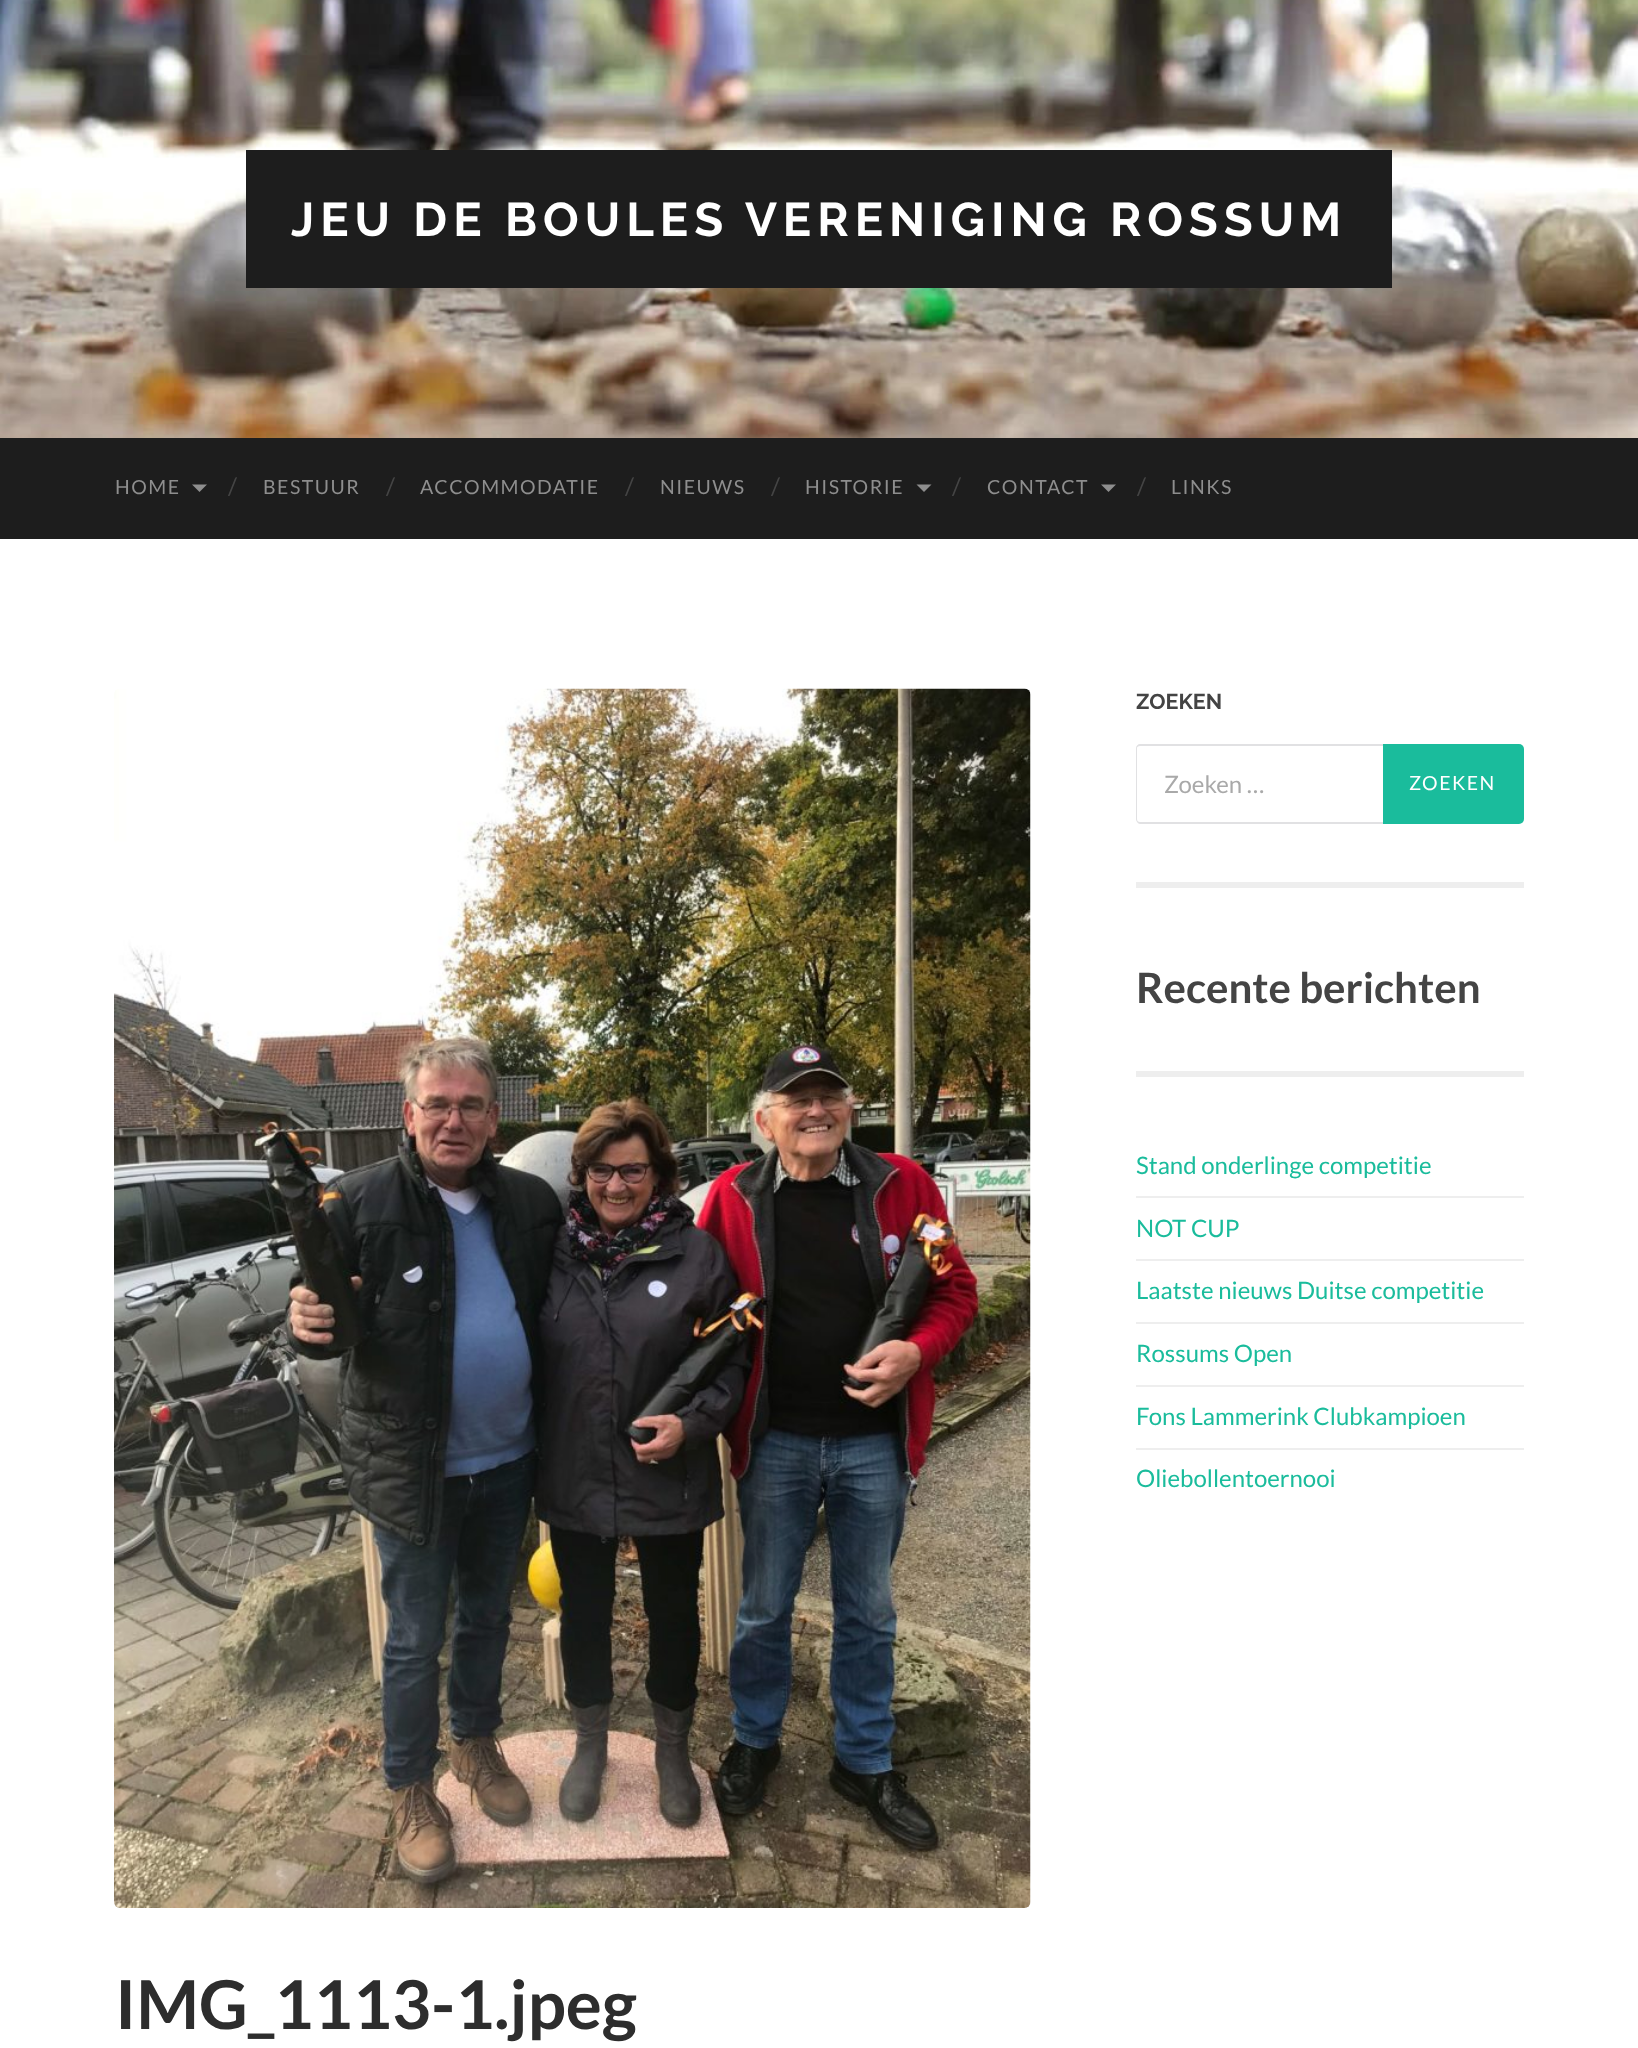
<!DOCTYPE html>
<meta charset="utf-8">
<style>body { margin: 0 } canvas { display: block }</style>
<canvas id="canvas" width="1638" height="2048"></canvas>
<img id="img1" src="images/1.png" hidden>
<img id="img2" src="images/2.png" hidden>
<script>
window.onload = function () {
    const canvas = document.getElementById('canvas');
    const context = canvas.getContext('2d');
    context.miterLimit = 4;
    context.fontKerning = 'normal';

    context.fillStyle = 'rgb(255, 255, 255)';
    context.fillRect(0, 0, 1638, 2048);
    context.drawImage(document.getElementById('img1'), 0, 0, 1638, 438);
    context.fillStyle = 'rgb(29, 29, 29)';
    context.fillRect(246, 150, 1146, 138);
    context.fillRect(0, 438, 1638, 101);
    context.fillStyle = 'rgb(142, 142, 142)';
    context.beginPath();
    context.moveTo(192, 484.5);
    context.lineTo(207, 484.5);
    context.lineTo(199.5, 492);
    context.closePath();
    context.fill();
    context.beginPath();
    context.moveTo(916.5, 484.5);
    context.lineTo(931.5, 484.5);
    context.lineTo(924, 492);
    context.closePath();
    context.fill();
    context.beginPath();
    context.moveTo(1101, 484.5);
    context.lineTo(1116, 484.5);
    context.lineTo(1108.5, 492);
    context.closePath();
    context.fill();
    context.fillStyle = 'rgb(238, 238, 238)';
    context.fillRect(1136, 882, 388, 6);
    context.fillStyle = 'rgb(225, 225, 227)';
    context.beginPath();
    context.moveTo(1140, 744);
    context.lineTo(1383, 744);
    context.lineTo(1383, 824);
    context.lineTo(1140, 824);
    context.bezierCurveTo(1138, 824, 1136, 821, 1136, 819);
    context.lineTo(1136, 748);
    context.bezierCurveTo(1136, 746, 1138, 744, 1140, 744);
    context.closePath();
    context.moveTo(1140, 746);
    context.lineTo(1383, 746);
    context.lineTo(1383, 822);
    context.lineTo(1140, 822);
    context.bezierCurveTo(1138, 822, 1137, 821, 1137, 819);
    context.lineTo(1137, 748);
    context.bezierCurveTo(1137, 747, 1138, 746, 1140, 746);
    context.closePath();
    context.fill('evenodd');
    context.fillStyle = 'rgb(26, 188, 156)';
    context.beginPath();
    context.roundRect(1383, 744, 141, 80, [0, 5, 5, 0]);
    context.fill();
    context.fillStyle = 'rgb(238, 238, 238)';
    context.fillRect(1136, 1071, 388, 6);
    context.fillRect(1136, 1196, 388, 2);
    context.fillRect(1136, 1259, 388, 2);
    context.fillRect(1136, 1322, 388, 2);
    context.fillRect(1136, 1385, 388, 2);
    context.fillRect(1136, 1448, 388, 2);
    context.drawImage(document.getElementById('img2'), 114, 688, 917, 1220);
    context.letterSpacing = '6px';
    context.font = '100 47.25px Raleway';
    context.fillStyle = 'rgb(255, 255, 255)';
    context.fillText('JEU DE BOULES VERENIGING ROSSUM', 291, 236);
    context.letterSpacing = '1.5px';
    context.font = '19.5px Lato';
    context.fillStyle = 'rgb(142, 142, 142)';
    context.fillText('HOME', 115, 494);
    context.letterSpacing = '0px';
    context.font = '24px Lato';
    context.fillStyle = 'rgb(68, 68, 68)';
    context.fillText('/', 228, 495);
    context.letterSpacing = '1.5px';
    context.font = '19.5px Lato';
    context.fillStyle = 'rgb(142, 142, 142)';
    context.fillText('BESTUUR', 263, 494);
    context.letterSpacing = '0px';
    context.font = '24px Lato';
    context.fillStyle = 'rgb(68, 68, 68)';
    context.fillText('/', 386, 495);
    context.letterSpacing = '1.5px';
    context.font = '19.5px Lato';
    context.fillStyle = 'rgb(142, 142, 142)';
    context.fillText('ACCOMMODATIE', 420, 494);
    context.letterSpacing = '0px';
    context.font = '24px Lato';
    context.fillStyle = 'rgb(68, 68, 68)';
    context.fillText('/', 625, 495);
    context.letterSpacing = '1.5px';
    context.font = '19.5px Lato';
    context.fillStyle = 'rgb(142, 142, 142)';
    context.fillText('NIEUWS', 660, 494);
    context.letterSpacing = '0px';
    context.font = '24px Lato';
    context.fillStyle = 'rgb(68, 68, 68)';
    context.fillText('/', 771, 495);
    context.letterSpacing = '1.5px';
    context.font = '19.5px Lato';
    context.fillStyle = 'rgb(142, 142, 142)';
    context.fillText('HISTORIE', 805, 494);
    context.letterSpacing = '0px';
    context.font = '24px Lato';
    context.fillStyle = 'rgb(68, 68, 68)';
    context.fillText('/', 952, 495);
    context.letterSpacing = '1.5px';
    context.font = '19.5px Lato';
    context.fillStyle = 'rgb(142, 142, 142)';
    context.fillText('CONTACT', 987, 494);
    context.letterSpacing = '0px';
    context.font = '24px Lato';
    context.fillStyle = 'rgb(68, 68, 68)';
    context.fillText('/', 1137, 495);
    context.letterSpacing = '1.5px';
    context.font = '19.5px Lato';
    context.fillStyle = 'rgb(142, 142, 142)';
    context.fillText('LINKS', 1171, 494);
    context.letterSpacing = '0px';
    context.font = '100 21.5px Raleway';
    context.fillStyle = 'rgb(68, 68, 68)';
    context.fillText('ZOEKEN', 1136, 709);
    context.font = '24px Lato';
    context.fillStyle = 'rgb(169, 169, 169)';
    context.fillText('Zoeken …', 1164, 793);
    context.letterSpacing = '1.5px';
    context.font = '19.5px Lato';
    context.fillStyle = 'rgb(255, 255, 255)';
    context.fillText('ZOEKEN', 1409, 790);
    context.letterSpacing = '0px';
    context.font = 'bold 42px Lato';
    context.fillStyle = 'rgb(68, 68, 68)';
    context.fillText('Recente berichten', 1136, 1003);
    context.font = '24px Lato';
    context.fillStyle = 'rgb(26, 188, 156)';
    context.fillText('Stand onderlinge competitie', 1136, 1174);
    context.fillText('NOT CUP', 1136, 1237);
    context.fillText('Laatste nieuws Duitse competitie', 1136, 1299);
    context.fillText('Rossums Open', 1136, 1362);
    context.fillText('Fons Lammerink Clubkampioen', 1136, 1425);
    context.fillText('Oliebollentoernooi', 1136, 1487);
    context.font = 'bold 67.5px Lato';
    context.fillStyle = 'rgb(45, 45, 45)';
    context.fillText('IMG_1113-1.jpeg', 115, 2029);
};
</script>
